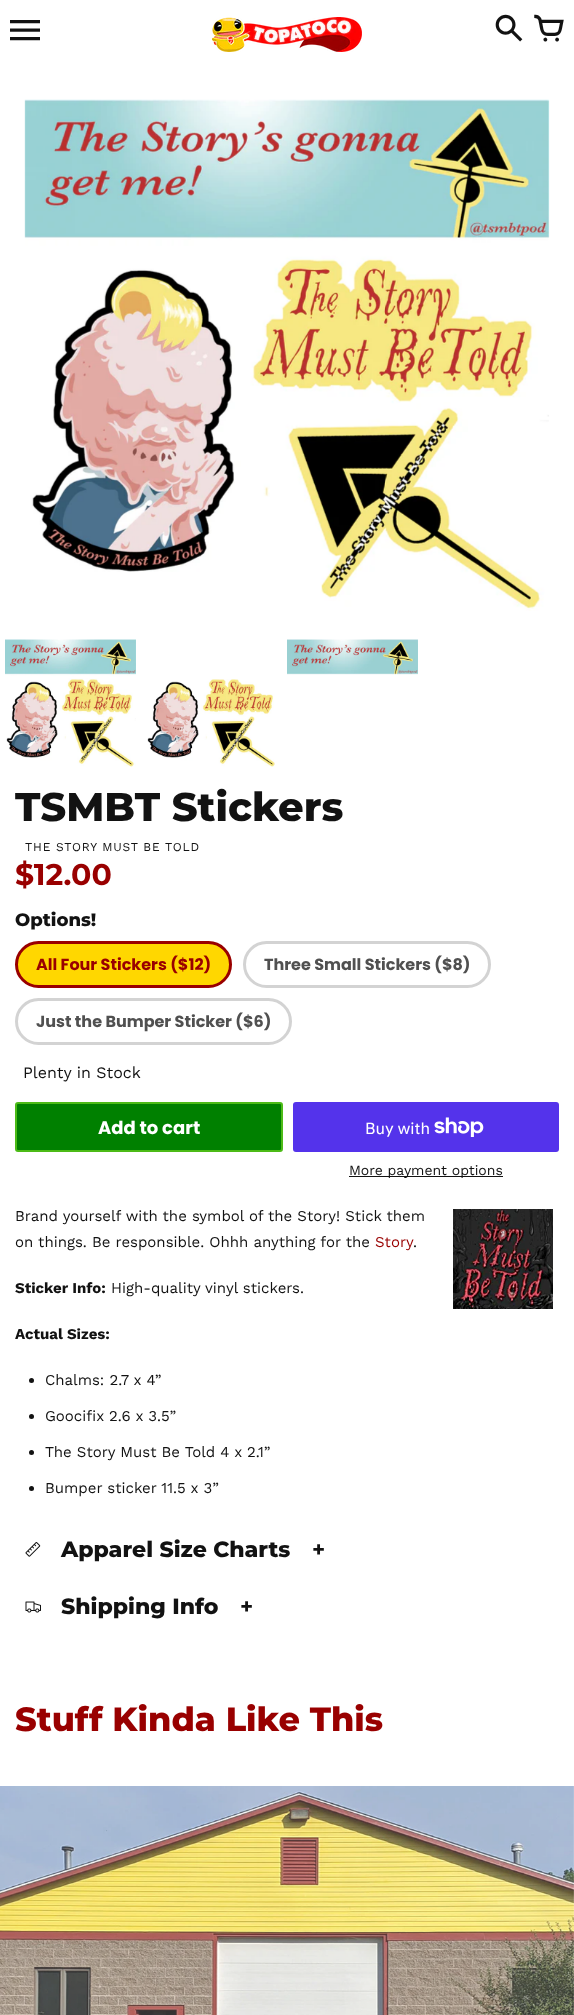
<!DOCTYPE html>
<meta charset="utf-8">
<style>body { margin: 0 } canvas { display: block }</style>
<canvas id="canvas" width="574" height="2015"></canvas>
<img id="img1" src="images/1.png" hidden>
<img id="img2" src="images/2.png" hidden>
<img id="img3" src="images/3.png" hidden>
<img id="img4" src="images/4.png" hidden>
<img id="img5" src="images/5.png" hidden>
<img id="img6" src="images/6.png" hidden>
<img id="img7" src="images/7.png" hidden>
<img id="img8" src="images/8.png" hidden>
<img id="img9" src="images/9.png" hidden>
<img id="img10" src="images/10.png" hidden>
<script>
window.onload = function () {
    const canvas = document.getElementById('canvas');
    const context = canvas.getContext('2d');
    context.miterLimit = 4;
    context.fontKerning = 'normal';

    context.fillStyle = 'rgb(255, 255, 255)';
    context.fillRect(0, 0, 574, 2015);
    context.drawImage(document.getElementById('img1'), 212, 17, 150, 35);
    context.drawImage(document.getElementById('img2'), 24, 99, 526, 512);
    context.drawImage(document.getElementById('img3'), 5, 639, 131, 128);
    context.drawImage(document.getElementById('img4'), 287, 639, 131, 36);
    context.drawImage(document.getElementById('img5'), 147, 679, 128, 88);
    context.fillStyle = 'rgb(255, 215, 0)';
    context.beginPath();
    context.roundRect(16.5, 942.5, 214, 44, 22);
    context.fill();
    context.strokeStyle = 'rgb(153, 0, 0)';
    context.lineWidth = 3;
    context.stroke();
    context.beginPath();
    context.roundRect(244.5, 942.5, 245, 44, 22);
    context.strokeStyle = 'rgb(211, 211, 211)';
    context.stroke();
    context.beginPath();
    context.roundRect(16.5, 999.5, 274, 44, 22);
    context.stroke();
    context.fillStyle = 'rgb(0, 128, 0)';
    context.beginPath();
    context.roundRect(16, 1103, 266, 48, 2);
    context.fill();
    context.strokeStyle = 'rgb(76, 187, 23)';
    context.lineWidth = 2;
    context.stroke();
    context.fillStyle = 'rgb(84, 51, 235)';
    context.beginPath();
    context.roundRect(293, 1102, 266, 50, 3);
    context.fill();
    context.drawImage(document.getElementById('img6'), 434, 1117, 50, 20);
    context.fillStyle = 'rgb(18, 18, 18)';
    context.fillRect(349, 1176, 154, 1);
    context.drawImage(document.getElementById('img7'), 453, 1209, 100, 100);
    context.beginPath();
    context.arc(31.5, 1380.5, 2.5, 0, 2 * Math.PI);
    context.fill();
    context.beginPath();
    context.arc(31.5, 1416.5, 2.5, 0, 2 * Math.PI);
    context.fill();
    context.beginPath();
    context.arc(31.5, 1452.5, 2.5, 0, 2 * Math.PI);
    context.fill();
    context.beginPath();
    context.arc(31.5, 1488.5, 2.5, 0, 2 * Math.PI);
    context.fill();
    context.drawImage(document.getElementById('img8'), 25, 1542, 16, 15);
    context.drawImage(document.getElementById('img9'), 25, 1601, 16, 12);
    context.drawImage(document.getElementById('img10'), 0, 1786, 574, 229);
    context.font = '30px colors';
    context.fillText('1', 10, 47);
    context.fillText('2', 494, 45);
    context.fillText('3', 534, 45);
    context.font = '800 40px Montserrat';
    context.fillText('TSMBT Stickers', 15, 821);
    context.letterSpacing = '0.8px';
    context.font = '12px Work Sans';
    context.fillText('THE STORY MUST BE TOLD', 25, 851);
    context.letterSpacing = '0px';
    context.font = 'bold 30px Montserrat';
    context.fillStyle = 'rgb(153, 0, 0)';
    context.fillText('$12.00', 15, 885);
    context.font = '800 18px Montserrat';
    context.fillStyle = 'rgb(18, 18, 18)';
    context.fillText('Options!', 15, 926);
    context.font = 'bold 16px Poppins';
    context.fillStyle = 'rgb(153, 0, 0)';
    context.fillText('All Four Stickers ($12)', 36, 970);
    context.fillStyle = 'rgb(80, 80, 80)';
    context.fillText('Three Small Stickers ($8)', 264, 970);
    context.fillText('Just the Bumper Sticker ($6)', 36, 1027);
    context.font = '16px Work Sans';
    context.fillStyle = 'rgb(18, 18, 18)';
    context.fillText('Plenty in Stock', 23, 1078);
    context.font = 'bold 18px Poppins';
    context.fillStyle = 'rgb(255, 255, 255)';
    context.fillText('Add to cart', 98, 1134);
    context.font = '16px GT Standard';
    context.fillText('Buy with', 365, 1134);
    context.font = '14px Work Sans';
    context.fillStyle = 'rgb(18, 18, 18)';
    context.fillText('More payment options', 349, 1175);
    context.font = '15px Work Sans';
    context.fillText('Brand yourself with the symbol of the Story! Stick them', 15, 1221);
    context.fillText('on things. Be responsible. Ohhh anything for the', 15, 1247);
    context.fillStyle = 'rgb(153, 0, 0)';
    context.fillText('Story', 375, 1247);
    context.fillStyle = 'rgb(18, 18, 18)';
    context.fillText('.', 413, 1247);
    context.font = 'bold 15px Work Sans';
    context.fillText('Sticker Info:', 15, 1293);
    context.font = '15px Work Sans';
    context.fillText('High-quality vinyl stickers.', 111, 1293);
    context.font = 'bold 15px Work Sans';
    context.fillText('Actual Sizes:', 15, 1339);
    context.font = '15px Work Sans';
    context.fillText('Chalms: 2.7 x 4”', 45, 1385);
    context.fillText('Goocifix 2.6 x 3.5”', 45, 1421);
    context.fillText('The Story Must Be Told 4 x 2.1”', 45, 1457);
    context.fillText('Bumper sticker 11.5 x 3”', 45, 1493);
    context.font = '800 22px Montserrat';
    context.fillText('Apparel Size Charts', 61, 1557);
    context.font = 'bold 22px Montserrat';
    context.fillText('+', 312, 1557);
    context.font = '800 22px Montserrat';
    context.fillText('Shipping Info', 61, 1614);
    context.font = 'bold 22px Montserrat';
    context.fillText('+', 240, 1614);
    context.font = '800 33.5px Montserrat';
    context.fillStyle = 'rgb(153, 0, 0)';
    context.fillText('Stuff Kinda Like This', 15, 1731);
};
</script>
